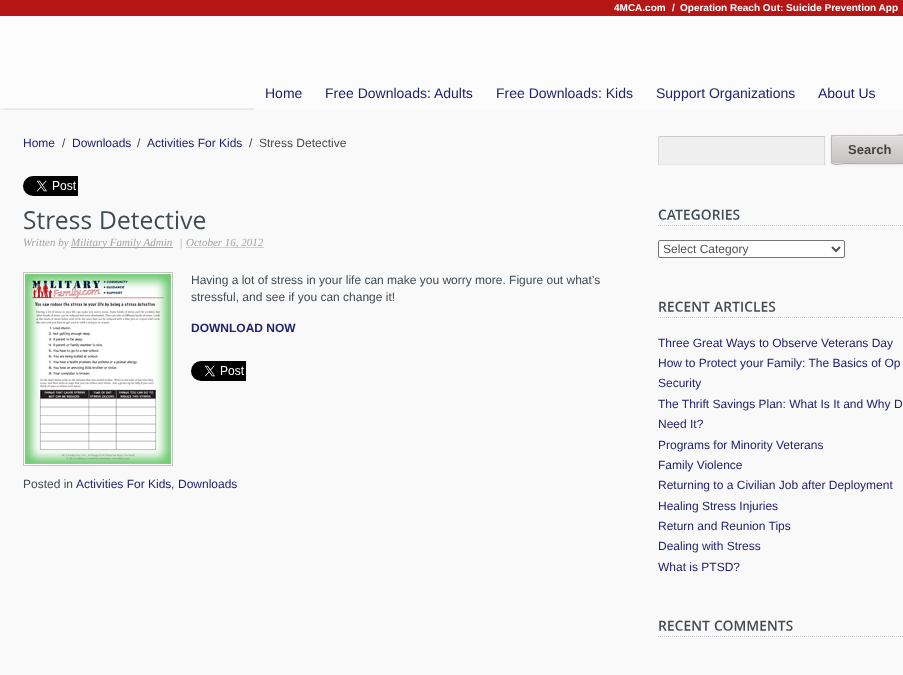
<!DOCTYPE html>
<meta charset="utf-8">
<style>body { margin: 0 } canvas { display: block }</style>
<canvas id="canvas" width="903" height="675"></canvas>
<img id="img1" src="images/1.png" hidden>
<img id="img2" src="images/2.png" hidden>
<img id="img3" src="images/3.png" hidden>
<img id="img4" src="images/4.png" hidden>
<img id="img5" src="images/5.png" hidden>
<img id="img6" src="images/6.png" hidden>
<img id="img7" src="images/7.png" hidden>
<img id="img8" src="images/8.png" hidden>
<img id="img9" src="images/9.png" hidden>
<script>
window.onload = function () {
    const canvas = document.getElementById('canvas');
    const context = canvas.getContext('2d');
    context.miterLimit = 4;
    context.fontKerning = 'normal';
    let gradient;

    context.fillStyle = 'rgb(181, 22, 22)';
    context.fillRect(0, 0, 903, 675);
    context.fillStyle = 'rgb(252, 252, 252)';
    context.fillRect(0, 16, 903, 94);
    context.save();
    context.beginPath();
    context.rect(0, 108, 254, 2);
    context.clip();
    context.fillStyle = 'rgba(0, 0, 0, 0.2)';
    context.filter = 'blur(3px)';
    context.beginPath();
    context.roundRect(0, 110, 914, 5, 2);
    context.fill();
    context.filter = 'none';
    context.restore();
    context.fillStyle = 'rgb(250, 249, 249)';
    context.fillRect(0, 110, 903, 565);
    context.fillStyle = 'rgb(232, 232, 232)';
    context.fillRect(659, 164, 166, 1);
    context.drawImage(document.getElementById('img1'), 23, 176, 55, 20);
    context.drawImage(document.getElementById('img2'), 24, 211, 67, 19);
    context.drawImage(document.getElementById('img3'), 101, 210, 105, 20);
    context.fillStyle = 'rgb(160, 165, 169)';
    context.fillRect(71, 247, 102, 1);
    context.beginPath();
    context.moveTo(186.5, 247.5);
    context.lineTo(264, 247.5);
    context.strokeStyle = 'rgb(160, 165, 169)';
    context.setLineDash([1, 1]);
    context.stroke();
    context.drawImage(document.getElementById('img4'), 23, 272, 150, 194);
    context.drawImage(document.getElementById('img5'), 191, 361, 55, 20);
    context.fillStyle = 'rgb(240, 239, 239)';
    context.fillRect(659, 137, 165, 27);
    context.fillStyle = 'rgb(203, 202, 202)';
    context.fillRect(659, 136, 166, 1);
    context.fillStyle = 'rgb(218, 217, 217)';
    context.fillRect(824, 137, 1, 28);
    context.fillStyle = 'rgb(203, 202, 202)';
    context.fillRect(824, 164, 1, 1);
    context.fillStyle = 'rgb(218, 217, 217)';
    context.fillRect(658, 137, 1, 28);
    context.fillStyle = 'rgba(0, 0, 0, 0.08)';
    context.filter = 'blur(1px)';
    context.beginPath();
    context.roundRect(831, 136, 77, 29, 2);
    context.fill();
    context.filter = 'none';
    gradient = context.createLinearGradient(870, 109, 870, 136);
    gradient.addColorStop(0, 'rgb(223, 221, 221)');
    gradient.addColorStop(1, 'rgb(198, 194, 194)');
    context.fillStyle = gradient;
    context.fillRect(831, 135, 72, 1);
    gradient = context.createLinearGradient(870, 136, 870, 163);
    gradient.addColorStop(0, 'rgb(223, 221, 221)');
    gradient.addColorStop(1, 'rgb(198, 194, 194)');
    context.fillStyle = gradient;
    context.fillRect(831, 136, 72, 27);
    gradient = context.createLinearGradient(870, 163, 870, 190);
    gradient.addColorStop(0, 'rgb(223, 221, 221)');
    gradient.addColorStop(1, 'rgb(198, 194, 194)');
    context.fillStyle = gradient;
    context.fillRect(831, 163, 72, 1);
    context.fillStyle = 'rgb(233, 231, 231)';
    context.beginPath();
    context.moveTo(833, 137);
    context.lineTo(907, 137);
    context.lineTo(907, 138);
    context.lineTo(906, 136);
    context.lineTo(833, 136);
    context.bezierCurveTo(832, 136, 832, 137, 832, 138);
    context.bezierCurveTo(832, 137, 832, 137, 833, 137);
    context.closePath();
    context.fill();
    context.beginPath();
    context.moveTo(832, 136);
    context.bezierCurveTo(833, 135, 887.5, 135.5, 894, 135.5);
    context.bezierCurveTo(898.5, 135.5, 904, 133, 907, 136);
    context.strokeStyle = 'rgb(197, 195, 195)';
    context.setLineDash([]);
    context.stroke();
    context.beginPath();
    context.moveTo(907, 163);
    context.bezierCurveTo(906, 164, 851.5, 163.5, 845, 163.5);
    context.bezierCurveTo(840.5, 163.5, 835, 166, 832, 163);
    context.strokeStyle = 'rgb(174, 170, 170)';
    context.stroke();
    context.beginPath();
    context.moveTo(832, 163);
    context.lineTo(831.5, 162);
    context.lineTo(831.5, 137);
    context.lineTo(832, 136);
    context.strokeStyle = 'rgb(186, 184, 184)';
    context.stroke();
    context.beginPath();
    context.moveTo(658, 225.5);
    context.lineTo(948, 225.5);
    context.strokeStyle = 'rgb(206, 204, 204)';
    context.setLineDash([1, 1]);
    context.stroke();
    context.drawImage(document.getElementById('img6'), 658, 209, 82, 11);
    context.fillStyle = 'rgb(255, 255, 255)';
    context.beginPath();
    context.roundRect(658.5, 240.5, 186, 17, 1.5);
    context.fill();
    context.strokeStyle = 'rgb(118, 118, 118)';
    context.setLineDash([]);
    context.stroke();
    context.beginPath();
    context.moveTo(832, 247);
    context.lineTo(836, 251);
    context.lineTo(840, 247);
    context.strokeStyle = 'rgb(82, 82, 82)';
    context.lineWidth = 2;
    context.stroke();
    context.beginPath();
    context.moveTo(658, 317.5);
    context.lineTo(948, 317.5);
    context.strokeStyle = 'rgb(206, 204, 204)';
    context.lineWidth = 1;
    context.setLineDash([1, 1]);
    context.stroke();
    context.drawImage(document.getElementById('img7'), 659, 301, 51, 11);
    context.drawImage(document.getElementById('img8'), 714, 301, 62, 11);
    context.beginPath();
    context.moveTo(658, 636.5);
    context.lineTo(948, 636.5);
    context.stroke();
    context.drawImage(document.getElementById('img7'), 659, 620, 51, 11);
    context.drawImage(document.getElementById('img9'), 714, 620, 79, 11);
    context.font = 'bold 10px Liberation Sans';
    context.fillText('4MCA.com', 614, 11);
    context.fillText('/', 672, 11);
    context.fillText('Operation Reach Out: Suicide Prevention App', 680, 11);
    context.font = '14px Liberation Sans';
    context.fillStyle = 'rgb(32, 34, 109)';
    context.fillText('Home', 265, 98);
    context.fillText('Free Downloads: Adults', 325, 98);
    context.fillText('Free Downloads: Kids', 496, 98);
    context.fillText('Support Organizations', 656, 98);
    context.fillText('About Us', 818, 98);
    context.font = '12px Liberation Sans';
    context.fillText('Home', 23, 147);
    context.fillStyle = 'rgb(65, 75, 82)';
    context.fillText('/', 62, 147);
    context.fillStyle = 'rgb(32, 34, 109)';
    context.fillText('Downloads', 72, 147);
    context.fillStyle = 'rgb(65, 75, 82)';
    context.fillText('/', 137, 147);
    context.fillStyle = 'rgb(32, 34, 109)';
    context.fillText('Activities For Kids', 147, 147);
    context.fillStyle = 'rgb(65, 75, 82)';
    context.fillText('/  Stress Detective', 249, 147);
    context.font = 'italic 11px Liberation Serif';
    context.fillStyle = 'rgb(160, 165, 169)';
    context.fillText('Written by', 23, 246);
    context.fillText('Military Family Admin', 71, 246);
    context.font = '11px Liberation Serif';
    context.fillText('|', 180, 246);
    context.font = 'italic 11px Liberation Serif';
    context.fillText('October 16, 2012', 186, 246);
    context.font = '12px Liberation Sans';
    context.fillStyle = 'rgb(65, 75, 82)';
    context.fillText('Having a lot of stress in your life can make you worry more. Figure out what’s', 191, 284);
    context.fillText('stressful, and see if you can change it!', 191, 301);
    context.font = 'bold 12px Liberation Sans';
    context.fillStyle = 'rgb(32, 34, 109)';
    context.fillText('DOWNLOAD NOW', 191, 332);
    context.font = '12px Liberation Sans';
    context.fillStyle = 'rgb(65, 75, 82)';
    context.fillText('Posted in', 23, 488);
    context.fillStyle = 'rgb(32, 34, 109)';
    context.fillText('Activities For Kids', 76, 488);
    context.fillStyle = 'rgb(65, 75, 82)';
    context.fillText(',', 171, 488);
    context.fillStyle = 'rgb(32, 34, 109)';
    context.fillText('Downloads', 178, 488);
    context.font = 'bold 13px Liberation Sans';
    context.fillStyle = 'rgb(68, 67, 67)';
    context.fillText('Search', 848, 154);
    context.font = '12px Liberation Sans';
    context.fillStyle = 'rgb(82, 82, 82)';
    context.fillText('Select Category', 663, 253);
    context.fillStyle = 'rgb(32, 34, 109)';
    context.fillText('Three Great Ways to Observe Veterans Day', 658, 347);
    context.fillText('How to Protect your Family: The Basics of Op', 658, 367);
    context.fillText('Security', 658, 387);
    context.fillText('The Thrift Savings Plan: What Is It and Why D', 658, 408);
    context.fillText('Need It?', 658, 428);
    context.fillText('Programs for Minority Veterans', 658, 449);
    context.fillText('Family Violence', 658, 469);
    context.fillText('Returning to a Civilian Job after Deployment', 658, 489);
    context.fillText('Healing Stress Injuries', 658, 510);
    context.fillText('Return and Reunion Tips', 658, 530);
    context.fillText('Dealing with Stress', 658, 550);
    context.fillText('What is PTSD?', 658, 571);
};
</script>
